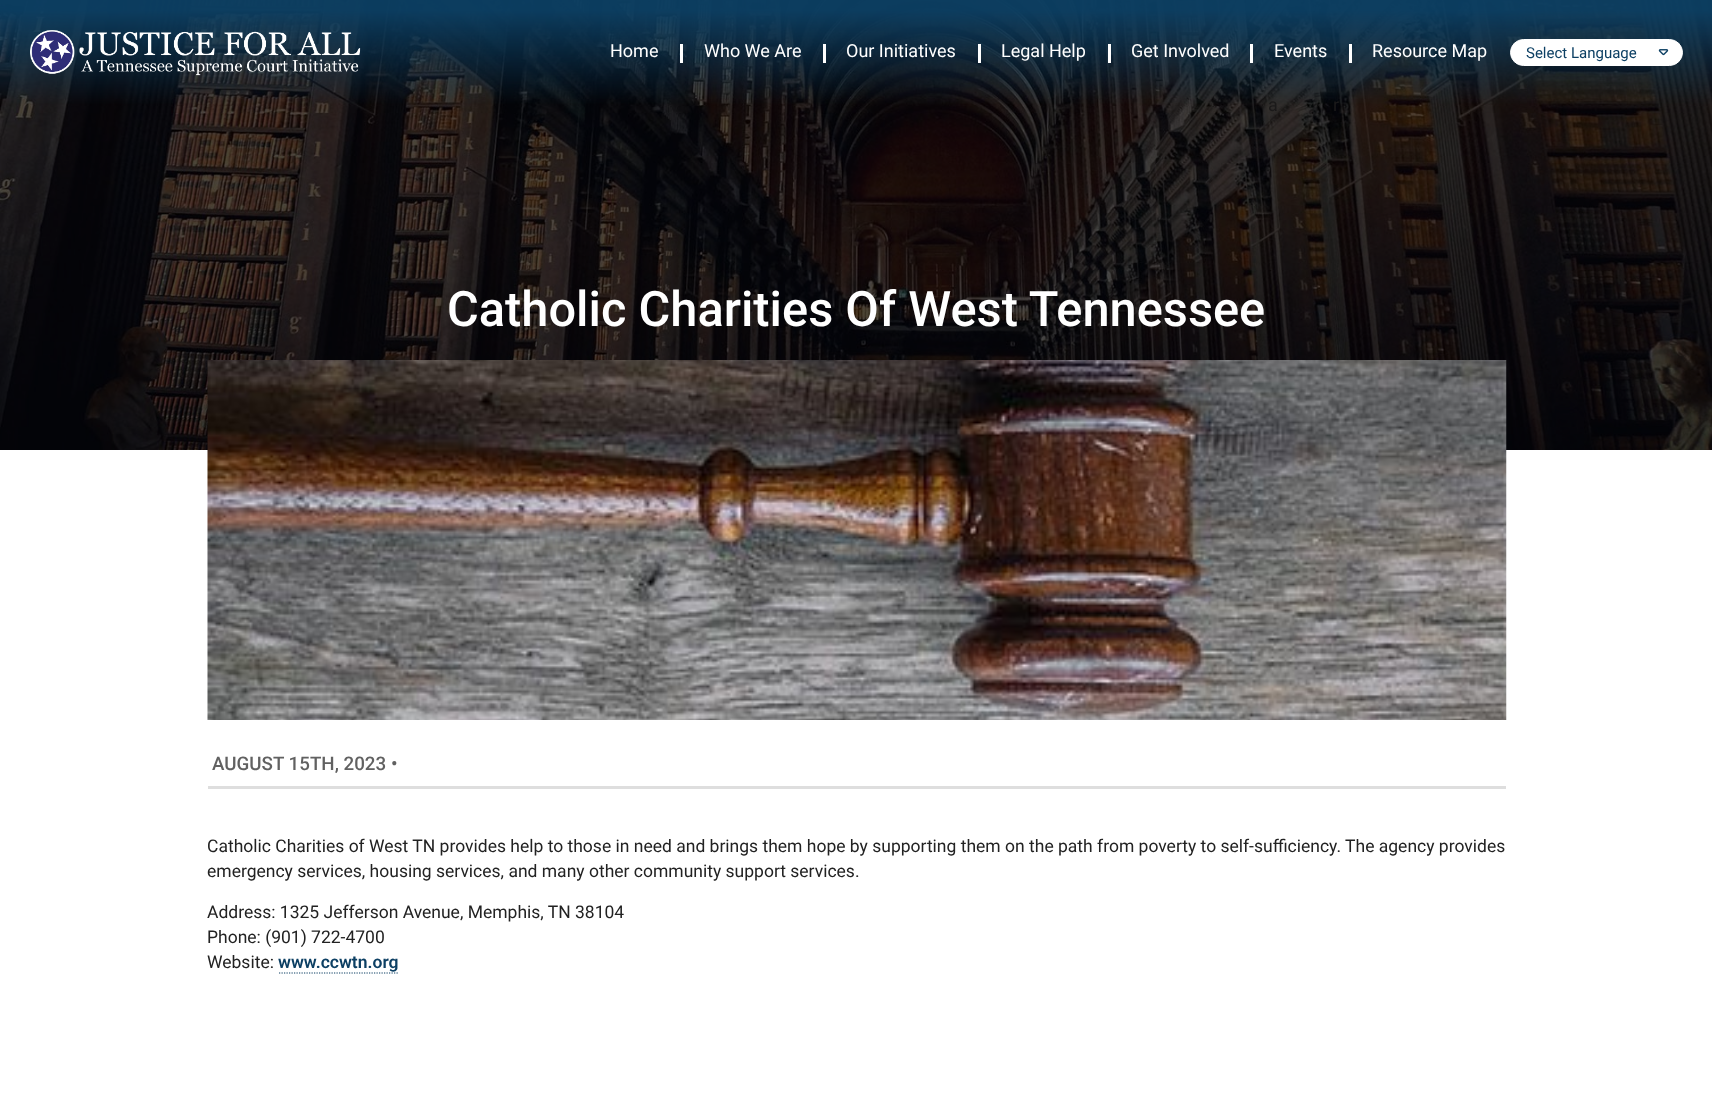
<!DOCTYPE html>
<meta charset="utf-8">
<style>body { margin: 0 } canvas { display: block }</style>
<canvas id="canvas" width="1712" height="1119"></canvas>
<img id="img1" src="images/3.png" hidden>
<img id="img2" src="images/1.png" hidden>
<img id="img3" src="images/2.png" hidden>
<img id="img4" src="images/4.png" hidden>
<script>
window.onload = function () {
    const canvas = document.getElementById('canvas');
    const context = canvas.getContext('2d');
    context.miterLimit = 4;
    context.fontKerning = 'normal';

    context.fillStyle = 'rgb(255, 255, 255)';
    context.fillRect(0, 0, 1712, 1119);
    context.drawImage(document.getElementById('img1'), 0, 0, 1712, 450);
    context.drawImage(document.getElementById('img2'), 30, 30, 331, 46);
    context.fillRect(823, 44, 3, 19);
    context.fillRect(1108, 44, 3, 19);
    context.fillRect(680, 44, 3, 19);
    context.fillRect(978, 44, 3, 19);
    context.fillRect(1250, 44, 3, 19);
    context.fillRect(1349, 44, 3, 19);
    context.beginPath();
    context.roundRect(1510.5, 39.5, 172, 26, 13);
    context.fill();
    context.strokeStyle = 'rgb(255, 255, 255)';
    context.stroke();
    context.drawImage(document.getElementById('img3'), 1658, 49, 11, 7);
    context.drawImage(document.getElementById('img4'), 207, 360, 1300, 360);
    context.fillStyle = 'rgb(222, 222, 222)';
    context.fillRect(208, 786, 1298, 3);
    context.beginPath();
    context.moveTo(279, 973);
    context.lineTo(399, 973);
    context.strokeStyle = 'rgb(12, 63, 99)';
    context.lineWidth = 1.2;
    context.setLineDash([1.25, 1.25]);
    context.stroke();
    context.font = '18px Roboto';
    context.fillStyle = 'rgb(255, 255, 255)';
    context.fillText('Who We Are', 704, 57);
    context.fillText('Legal Help', 1001, 57);
    context.fillStyle = 'rgb(27, 26, 26)';
    context.fillText('a', 1268, 111);
    context.fillText('r', 1333, 111);
    context.fillStyle = 'rgb(255, 255, 255)';
    context.fillText('Home', 610, 57);
    context.fillText('Our Initiatives', 846, 57);
    context.fillText('Get Involved', 1131, 57);
    context.fillText('Events', 1274, 57);
    context.fillText('Resource Map', 1372, 57);
    context.font = '15px Roboto';
    context.fillStyle = 'rgb(12, 63, 99)';
    context.fillText('Select Language', 1526, 58);
    context.font = '500 48.75px Roboto';
    context.fillStyle = 'rgb(255, 255, 255)';
    context.fillText('Catholic Charities Of West Tennessee', 447, 326);
    context.font = '500 18.75px Roboto';
    context.fillStyle = 'rgb(97, 97, 97)';
    context.fillText('AUGUST 15TH, 2023', 212, 770);
    context.fillText('•', 391, 770);
    context.font = '17.5px Roboto';
    context.fillStyle = 'rgb(34, 34, 34)';
    context.fillText('Catholic Charities of West TN provides help to those in need and brings them hope by supporting them on the path from poverty to self-sufficiency. The agency provides', 207, 852);
    context.fillText('emergency services, housing services, and many other community support services.', 207, 877);
    context.fillText('Address: 1325 Jefferson Avenue, Memphis, TN 38104', 207, 918);
    context.fillText('Phone: (901) 722-4700', 207, 943);
    context.fillText('Website:', 207, 968);
    context.font = '600 17.5px Roboto';
    context.fillStyle = 'rgb(12, 63, 99)';
    context.fillText('www.ccwtn.org', 278, 968);
};
</script>
